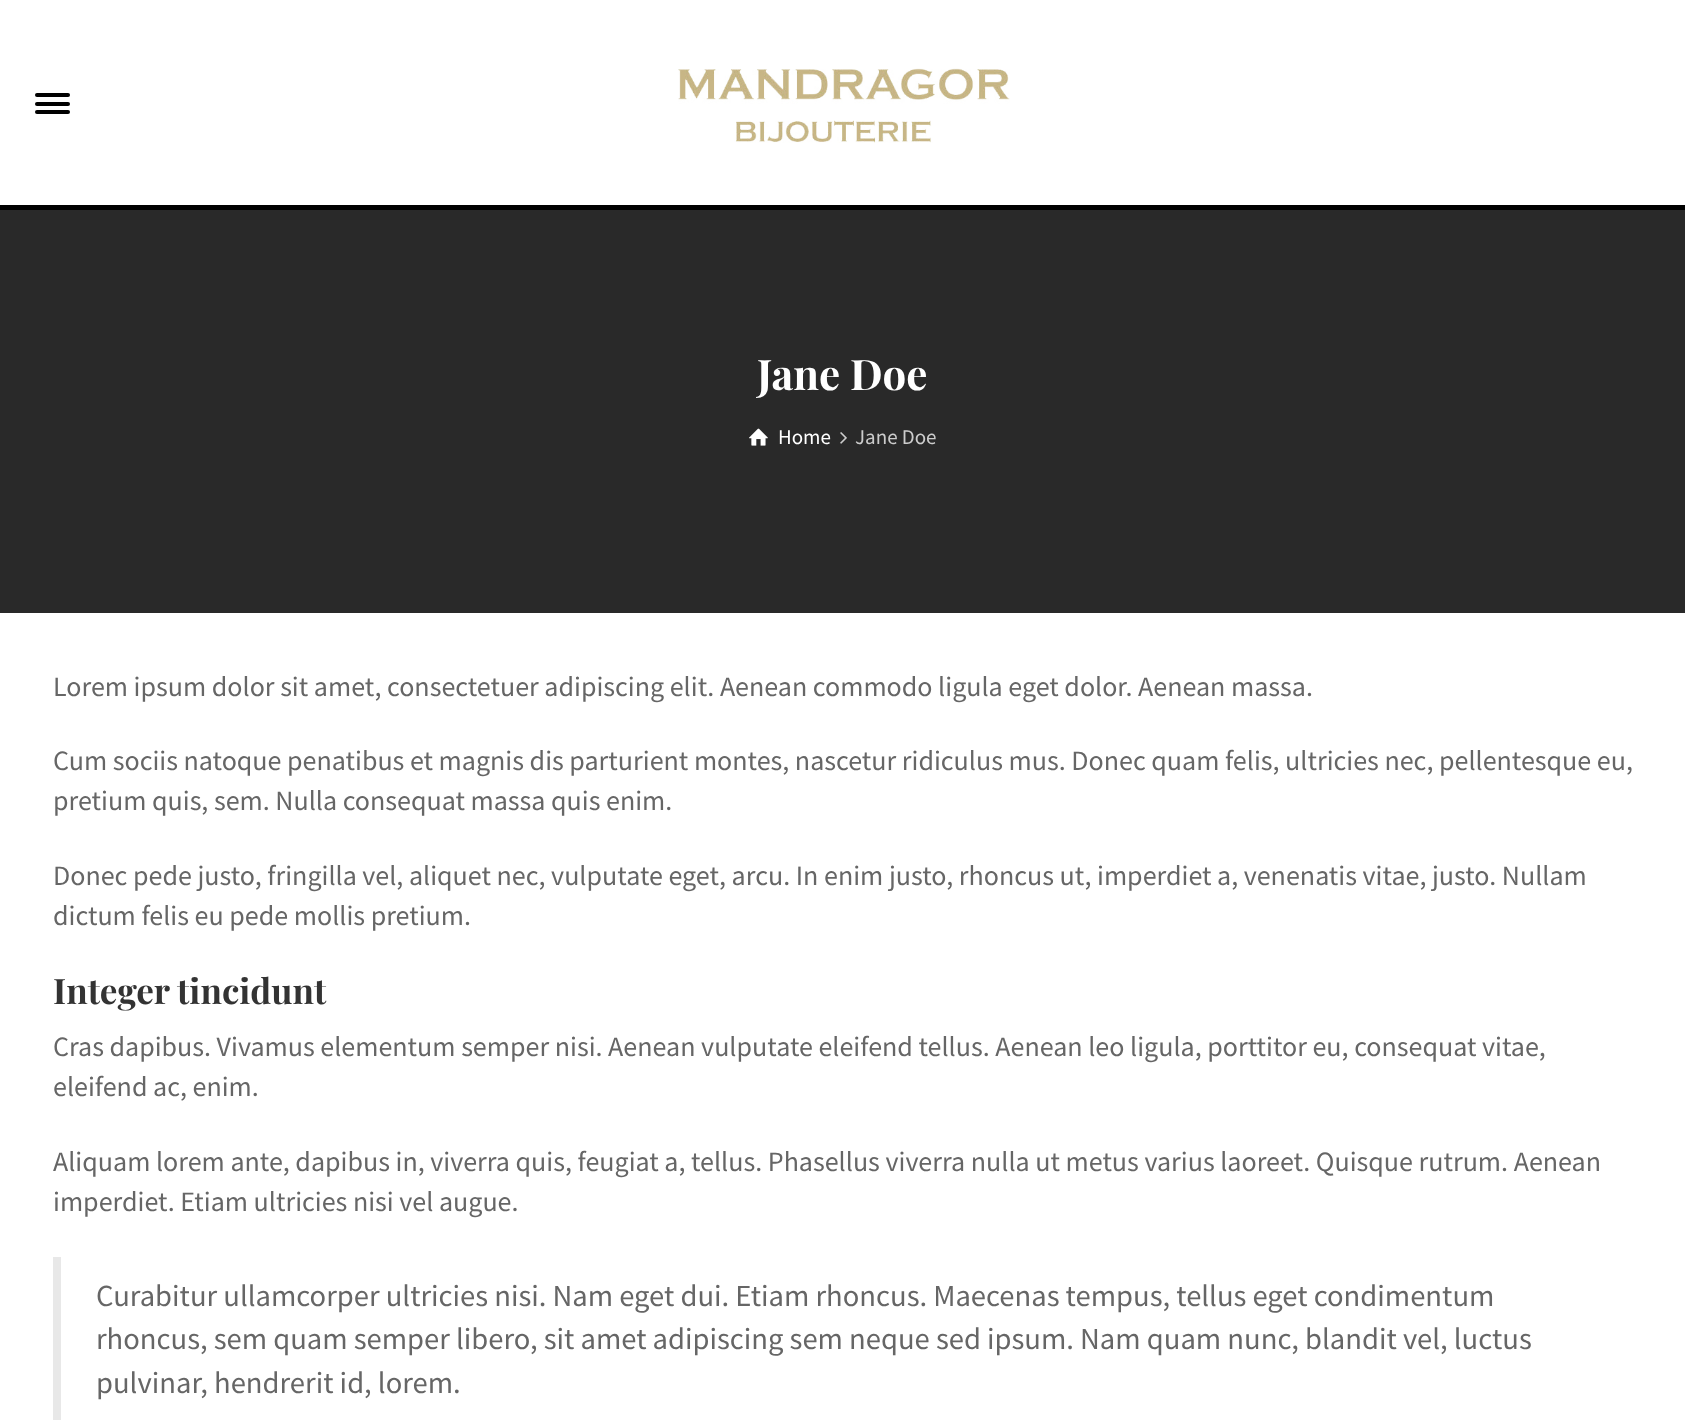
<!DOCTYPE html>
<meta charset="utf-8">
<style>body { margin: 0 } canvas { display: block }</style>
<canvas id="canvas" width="1685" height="1420"></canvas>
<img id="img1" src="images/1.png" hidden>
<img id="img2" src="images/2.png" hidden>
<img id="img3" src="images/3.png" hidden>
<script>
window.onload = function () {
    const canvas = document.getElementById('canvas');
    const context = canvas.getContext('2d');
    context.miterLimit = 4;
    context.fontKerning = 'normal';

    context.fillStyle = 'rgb(255, 255, 255)';
    context.fillRect(0, 0, 1685, 1420);
    context.fillStyle = 'rgb(0, 0, 0)';
    context.fillRect(0, 205, 1685, 5);
    context.beginPath();
    context.roundRect(35, 93, 35, 4, 2);
    context.fill();
    context.beginPath();
    context.roundRect(35, 102, 35, 4, 2);
    context.fill();
    context.beginPath();
    context.roundRect(35, 110, 35, 4, 2);
    context.fill();
    context.drawImage(document.getElementById('img1'), 678, 68, 332, 75);
    context.fillStyle = 'rgb(41, 41, 41)';
    context.fillRect(0, 210, 1685, 403);
    context.drawImage(document.getElementById('img2'), 749, 428, 19, 18);
    context.drawImage(document.getElementById('img3'), 840, 432, 7, 12);
    context.fillStyle = 'rgb(232, 232, 232)';
    context.fillRect(53, 1257, 8, 163);
    context.font = 'bold 42px Playfair Display';
    context.fillStyle = 'rgb(255, 255, 255)';
    context.fillText('Jane Doe', 757, 390);
    context.font = '21px Source Sans Pro';
    context.fillText('Home', 778, 444);
    context.fillStyle = 'rgb(204, 204, 204)';
    context.fillText('Jane Doe', 855, 444);
    context.font = '28px Source Sans Pro';
    context.fillStyle = 'rgb(102, 102, 102)';
    context.fillText('Lorem ipsum dolor sit amet, consectetuer adipiscing elit. Aenean commodo ligula eget dolor. Aenean massa.', 53, 696);
    context.fillText('Cum sociis natoque penatibus et magnis dis parturient montes, nascetur ridiculus mus. Donec quam felis, ultricies nec, pellentesque eu,', 53, 770);
    context.fillText('pretium quis, sem. Nulla consequat massa quis enim.', 53, 810);
    context.fillText('Donec pede justo, fringilla vel, aliquet nec, vulputate eget, arcu. In enim justo, rhoncus ut, imperdiet a, venenatis vitae, justo. Nullam', 53, 885);
    context.fillText('dictum felis eu pede mollis pretium.', 53, 925);
    context.font = 'bold 35px Playfair Display';
    context.fillStyle = 'rgb(51, 51, 51)';
    context.fillText('Integer tincidunt', 53, 1004);
    context.font = '28px Source Sans Pro';
    context.fillStyle = 'rgb(102, 102, 102)';
    context.fillText('Cras dapibus. Vivamus elementum semper nisi. Aenean vulputate eleifend tellus. Aenean leo ligula, porttitor eu, consequat vitae,', 53, 1056);
    context.fillText('eleifend ac, enim.', 53, 1096);
    context.fillText('Aliquam lorem ante, dapibus in, viverra quis, feugiat a, tellus. Phasellus viverra nulla ut metus varius laoreet. Quisque rutrum. Aenean', 53, 1171);
    context.fillText('imperdiet. Etiam ultricies nisi vel augue.', 53, 1211);
    context.font = '30.6px Source Sans Pro';
    context.fillText('Curabitur ullamcorper ultricies nisi. Nam eget dui. Etiam rhoncus. Maecenas tempus, tellus eget condimentum', 96, 1306);
    context.fillText('rhoncus, sem quam semper libero, sit amet adipiscing sem neque sed ipsum. Nam quam nunc, blandit vel, luctus', 96, 1349);
    context.fillText('pulvinar, hendrerit id, lorem.', 96, 1393);
};
</script>
